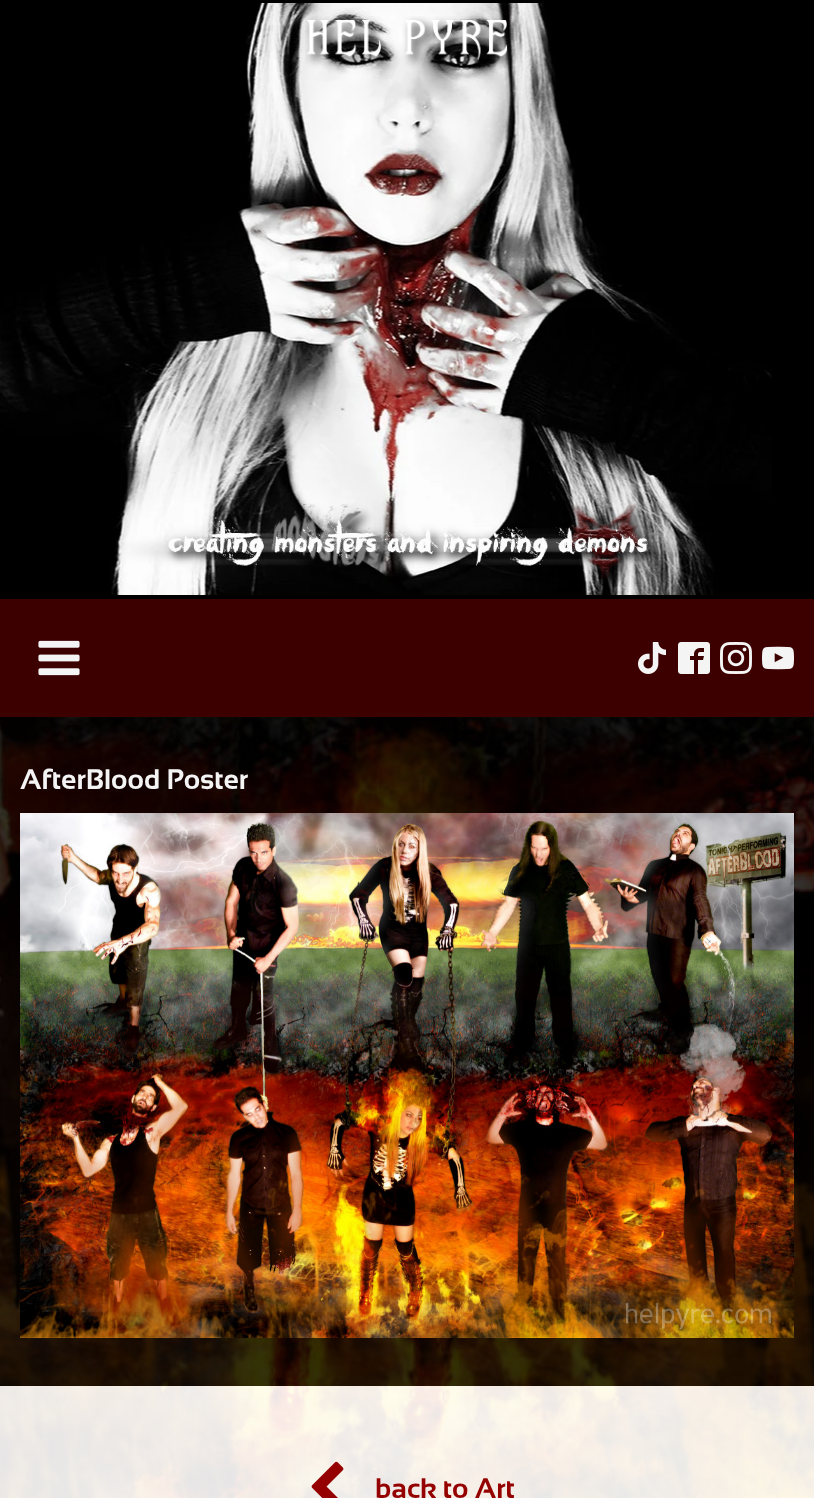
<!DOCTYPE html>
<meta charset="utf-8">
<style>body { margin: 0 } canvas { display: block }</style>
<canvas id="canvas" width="814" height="1498"></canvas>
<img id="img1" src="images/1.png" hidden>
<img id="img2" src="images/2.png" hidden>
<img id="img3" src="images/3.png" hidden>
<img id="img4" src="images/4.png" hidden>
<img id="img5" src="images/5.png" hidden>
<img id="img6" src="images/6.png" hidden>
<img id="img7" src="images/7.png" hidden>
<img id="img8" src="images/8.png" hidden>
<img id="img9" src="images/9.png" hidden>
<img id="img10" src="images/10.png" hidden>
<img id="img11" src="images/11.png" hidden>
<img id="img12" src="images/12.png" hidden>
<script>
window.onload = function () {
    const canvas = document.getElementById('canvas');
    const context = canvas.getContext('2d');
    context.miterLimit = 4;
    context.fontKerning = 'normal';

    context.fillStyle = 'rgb(0, 0, 0)';
    context.fillRect(0, 0, 814, 1498);
    context.drawImage(document.getElementById('img1'), 0, 3, 772, 592);
    context.drawImage(document.getElementById('img2'), 305, 16, 215, 53);
    context.drawImage(document.getElementById('img3'), 116, 503, 586, 84);
    context.fillStyle = 'rgb(61, 0, 0)';
    context.fillRect(0, 599, 814, 118);
    context.drawImage(document.getElementById('img4'), 38, 640, 42, 36);
    context.drawImage(document.getElementById('img5'), 638, 642, 28, 32);
    context.drawImage(document.getElementById('img6'), 678, 642, 32, 32);
    context.drawImage(document.getElementById('img7'), 720, 642, 32, 32);
    context.drawImage(document.getElementById('img8'), 762, 646, 32, 24);
    context.drawImage(document.getElementById('img9'), 0, 717, 814, 669);
    context.drawImage(document.getElementById('img10'), 20, 813, 774, 525);
    context.drawImage(document.getElementById('img11'), 0, 1386, 814, 112);
    context.drawImage(document.getElementById('img12'), 311, 1461, 33, 37);
    context.font = 'bold 28.25px Sansation';
    context.fillStyle = 'rgb(244, 244, 244)';
    context.fillText('AfterBlood Poster', 20, 789);
    context.fillStyle = 'rgb(149, 1, 1)';
    context.fillText('back to Art', 375, 1498);
};
</script>
